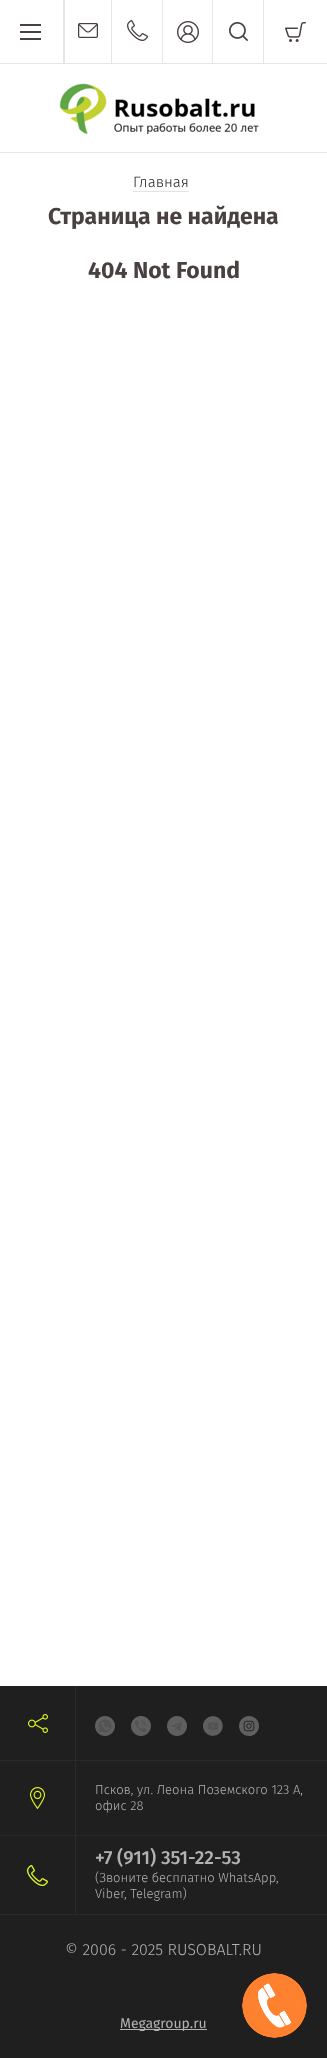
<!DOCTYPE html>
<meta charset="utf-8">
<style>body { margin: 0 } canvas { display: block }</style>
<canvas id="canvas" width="327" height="2058"></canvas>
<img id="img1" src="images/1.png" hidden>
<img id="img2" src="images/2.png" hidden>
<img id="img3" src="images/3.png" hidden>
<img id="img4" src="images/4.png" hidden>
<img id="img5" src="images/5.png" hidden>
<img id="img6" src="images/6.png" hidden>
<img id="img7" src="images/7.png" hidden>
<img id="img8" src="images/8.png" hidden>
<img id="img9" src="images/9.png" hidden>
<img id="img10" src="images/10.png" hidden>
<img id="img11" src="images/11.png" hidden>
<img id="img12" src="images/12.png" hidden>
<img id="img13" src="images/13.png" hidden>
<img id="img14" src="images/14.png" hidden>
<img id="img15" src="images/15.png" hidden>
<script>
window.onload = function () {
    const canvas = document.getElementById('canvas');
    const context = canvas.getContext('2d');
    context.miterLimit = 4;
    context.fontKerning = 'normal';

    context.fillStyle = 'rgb(255, 255, 255)';
    context.fillRect(0, 0, 327, 2058);
    context.fillStyle = 'rgb(230, 230, 230)';
    context.fillRect(0, 63, 327, 1);
    context.fillRect(63, 0, 2, 63);
    context.fillStyle = 'rgb(72, 65, 63)';
    context.fillRect(20, 24, 21, 2);
    context.fillRect(20, 31, 21, 2);
    context.fillRect(20, 38, 21, 2);
    context.drawImage(document.getElementById('img1'), 78, 23, 20, 15);
    context.drawImage(document.getElementById('img2'), 127, 20, 21, 21);
    context.fillStyle = 'rgb(230, 230, 230)';
    context.fillRect(111, 0, 1, 63);
    context.drawImage(document.getElementById('img3'), 177, 21, 22, 22);
    context.fillRect(162, 0, 1, 63);
    context.drawImage(document.getElementById('img4'), 229, 22, 19, 19);
    context.fillRect(212, 0, 1, 63);
    context.fillRect(263, 0, 1, 63);
    context.drawImage(document.getElementById('img5'), 285, 22, 21, 20);
    context.fillRect(0, 152, 327, 1);
    context.drawImage(document.getElementById('img6'), 59, 83, 200, 51);
    context.fillStyle = 'rgb(228, 227, 226)';
    context.fillRect(133, 191, 56, 1);
    context.fillStyle = 'rgb(31, 31, 31)';
    context.fillRect(0, 1686, 327, 372);
    context.fillStyle = 'rgb(42, 42, 42)';
    context.fillRect(0, 1914, 327, 1);
    context.fillRect(0, 1760, 327, 1);
    context.drawImage(document.getElementById('img7'), 28, 1714, 20, 19);
    context.fillRect(75, 1686, 1, 74);
    context.drawImage(document.getElementById('img8'), 95, 1716, 20, 20);
    context.drawImage(document.getElementById('img9'), 131, 1716, 20, 20);
    context.drawImage(document.getElementById('img10'), 167, 1716, 20, 20);
    context.drawImage(document.getElementById('img11'), 203, 1716, 20, 20);
    context.drawImage(document.getElementById('img12'), 239, 1716, 20, 20);
    context.fillRect(0, 1835, 327, 1);
    context.drawImage(document.getElementById('img13'), 30, 1787, 15, 22);
    context.fillRect(75, 1761, 1, 74);
    context.drawImage(document.getElementById('img14'), 27, 1865, 21, 21);
    context.fillRect(75, 1836, 1, 78);
    context.fillStyle = 'rgb(178, 178, 178)';
    context.fillRect(120, 2029, 87, 1);
    context.drawImage(document.getElementById('img15'), 242, 1973, 65, 65);
    context.font = '300 15px Fira Sans';
    context.fillStyle = 'rgb(31, 31, 31)';
    context.fillText('Главная', 133, 187);
    context.font = 'bold 23px Fira Sans';
    context.fillStyle = 'rgb(72, 65, 63)';
    context.fillText('Страница не найдена', 48, 224);
    context.fillText('404 Not Found', 88, 278);
    context.font = '300 13px Fira Sans';
    context.fillStyle = 'rgb(178, 178, 178)';
    context.fillText('Псков, ул. Леона Поземского 123 А,', 95, 1794);
    context.fillText('офис 28', 95, 1810);
    context.font = '500 19px Fira Sans';
    context.fillText('+7 (911) 351-22-53', 95, 1864);
    context.font = '300 13px Fira Sans';
    context.fillText('(Звоните бесплатно WhatsApp,', 95, 1882);
    context.fillText('Viber, Telegram)', 95, 1898);
    context.font = '300 16px Fira Sans';
    context.fillText('© 2006 - 2025 RUSOBALT.RU', 65, 1955);
    context.font = '14px Fira Sans';
    context.fillText('Megagroup.ru', 120, 2028);
};
</script>
